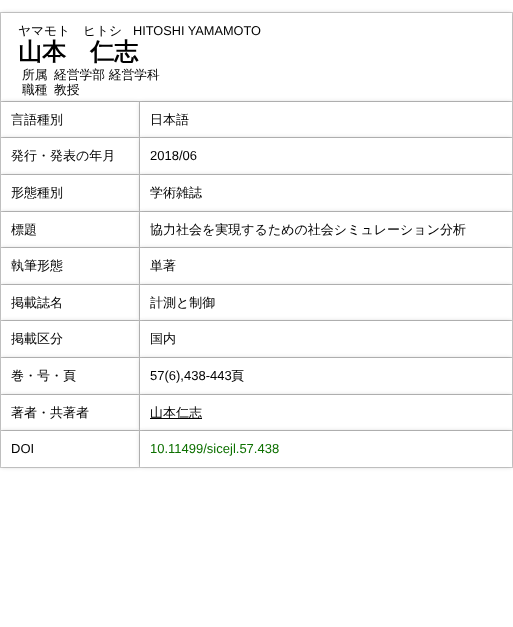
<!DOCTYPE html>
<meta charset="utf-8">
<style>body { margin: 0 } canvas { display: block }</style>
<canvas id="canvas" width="513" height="627"></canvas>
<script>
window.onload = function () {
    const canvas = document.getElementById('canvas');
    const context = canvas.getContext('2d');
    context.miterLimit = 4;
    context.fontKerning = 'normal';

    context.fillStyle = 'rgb(255, 255, 255)';
    context.fillRect(0, 0, 513, 627);
    context.fillStyle = 'rgb(208, 208, 208)';
    context.fillRect(0, 12, 513, 456);
    context.fillStyle = 'rgba(0, 0, 0, 0.2)';
    context.filter = 'blur(2px)';
    context.beginPath();
    context.rect(1, 13, 511, 88);
    context.fill();
    context.filter = 'none';
    context.fillStyle = 'rgb(255, 255, 255)';
    context.fillRect(1, 13, 511, 88);
    context.fillStyle = 'rgba(0, 0, 0, 0.2)';
    context.filter = 'blur(2px)';
    context.beginPath();
    context.rect(1, 102, 138, 35);
    context.fill();
    context.filter = 'none';
    context.fillStyle = 'rgb(255, 255, 255)';
    context.fillRect(1, 102, 138, 35);
    context.fillStyle = 'rgba(0, 0, 0, 0.2)';
    context.filter = 'blur(2px)';
    context.beginPath();
    context.rect(140, 102, 372, 35);
    context.fill();
    context.filter = 'none';
    context.fillStyle = 'rgb(255, 255, 255)';
    context.fillRect(140, 102, 372, 35);
    context.fillStyle = 'rgba(0, 0, 0, 0.2)';
    context.filter = 'blur(2px)';
    context.beginPath();
    context.rect(1, 138, 138, 36);
    context.fill();
    context.filter = 'none';
    context.fillStyle = 'rgb(255, 255, 255)';
    context.fillRect(1, 138, 138, 36);
    context.fillStyle = 'rgba(0, 0, 0, 0.2)';
    context.filter = 'blur(2px)';
    context.beginPath();
    context.rect(140, 138, 372, 36);
    context.fill();
    context.filter = 'none';
    context.fillStyle = 'rgb(255, 255, 255)';
    context.fillRect(140, 138, 372, 36);
    context.fillStyle = 'rgba(0, 0, 0, 0.2)';
    context.filter = 'blur(2px)';
    context.beginPath();
    context.rect(1, 175, 138, 36);
    context.fill();
    context.filter = 'none';
    context.fillStyle = 'rgb(255, 255, 255)';
    context.fillRect(1, 175, 138, 36);
    context.fillStyle = 'rgba(0, 0, 0, 0.2)';
    context.filter = 'blur(2px)';
    context.beginPath();
    context.rect(140, 175, 372, 36);
    context.fill();
    context.filter = 'none';
    context.fillStyle = 'rgb(255, 255, 255)';
    context.fillRect(140, 175, 372, 36);
    context.fillStyle = 'rgba(0, 0, 0, 0.2)';
    context.filter = 'blur(2px)';
    context.beginPath();
    context.rect(1, 212, 138, 35);
    context.fill();
    context.filter = 'none';
    context.fillStyle = 'rgb(255, 255, 255)';
    context.fillRect(1, 212, 138, 35);
    context.fillStyle = 'rgba(0, 0, 0, 0.2)';
    context.filter = 'blur(2px)';
    context.beginPath();
    context.rect(140, 212, 372, 35);
    context.fill();
    context.filter = 'none';
    context.fillStyle = 'rgb(255, 255, 255)';
    context.fillRect(140, 212, 372, 35);
    context.fillStyle = 'rgba(0, 0, 0, 0.2)';
    context.filter = 'blur(2px)';
    context.beginPath();
    context.rect(1, 248, 138, 36);
    context.fill();
    context.filter = 'none';
    context.fillStyle = 'rgb(255, 255, 255)';
    context.fillRect(1, 248, 138, 36);
    context.fillStyle = 'rgba(0, 0, 0, 0.2)';
    context.filter = 'blur(2px)';
    context.beginPath();
    context.rect(140, 248, 372, 36);
    context.fill();
    context.filter = 'none';
    context.fillStyle = 'rgb(255, 255, 255)';
    context.fillRect(140, 248, 372, 36);
    context.fillStyle = 'rgba(0, 0, 0, 0.2)';
    context.filter = 'blur(2px)';
    context.beginPath();
    context.rect(1, 285, 138, 35);
    context.fill();
    context.filter = 'none';
    context.fillStyle = 'rgb(255, 255, 255)';
    context.fillRect(1, 285, 138, 35);
    context.fillStyle = 'rgba(0, 0, 0, 0.2)';
    context.filter = 'blur(2px)';
    context.beginPath();
    context.rect(140, 285, 372, 35);
    context.fill();
    context.filter = 'none';
    context.fillStyle = 'rgb(255, 255, 255)';
    context.fillRect(140, 285, 372, 35);
    context.fillStyle = 'rgba(0, 0, 0, 0.2)';
    context.filter = 'blur(2px)';
    context.beginPath();
    context.rect(1, 321, 138, 36);
    context.fill();
    context.filter = 'none';
    context.fillStyle = 'rgb(255, 255, 255)';
    context.fillRect(1, 321, 138, 36);
    context.fillStyle = 'rgba(0, 0, 0, 0.2)';
    context.filter = 'blur(2px)';
    context.beginPath();
    context.rect(140, 321, 372, 36);
    context.fill();
    context.filter = 'none';
    context.fillStyle = 'rgb(255, 255, 255)';
    context.fillRect(140, 321, 372, 36);
    context.fillStyle = 'rgba(0, 0, 0, 0.2)';
    context.filter = 'blur(2px)';
    context.beginPath();
    context.rect(1, 358, 138, 36);
    context.fill();
    context.filter = 'none';
    context.fillStyle = 'rgb(255, 255, 255)';
    context.fillRect(1, 358, 138, 36);
    context.fillStyle = 'rgba(0, 0, 0, 0.2)';
    context.filter = 'blur(2px)';
    context.beginPath();
    context.rect(140, 358, 372, 36);
    context.fill();
    context.filter = 'none';
    context.fillStyle = 'rgb(255, 255, 255)';
    context.fillRect(140, 358, 372, 36);
    context.fillStyle = 'rgba(0, 0, 0, 0.2)';
    context.filter = 'blur(2px)';
    context.beginPath();
    context.rect(1, 395, 138, 35);
    context.fill();
    context.filter = 'none';
    context.fillStyle = 'rgb(255, 255, 255)';
    context.fillRect(1, 395, 138, 35);
    context.fillStyle = 'rgba(0, 0, 0, 0.2)';
    context.filter = 'blur(2px)';
    context.beginPath();
    context.rect(140, 395, 372, 35);
    context.fill();
    context.filter = 'none';
    context.fillStyle = 'rgb(255, 255, 255)';
    context.fillRect(140, 395, 372, 35);
    context.fillStyle = 'rgb(0, 0, 0)';
    context.fillRect(150, 418, 52, 1);
    context.fillStyle = 'rgba(0, 0, 0, 0.2)';
    context.filter = 'blur(2px)';
    context.beginPath();
    context.rect(1, 431, 138, 36);
    context.fill();
    context.filter = 'none';
    context.fillStyle = 'rgb(255, 255, 255)';
    context.fillRect(1, 431, 138, 36);
    context.fillStyle = 'rgba(0, 0, 0, 0.2)';
    context.filter = 'blur(2px)';
    context.beginPath();
    context.rect(140, 431, 372, 36);
    context.fill();
    context.filter = 'none';
    context.fillStyle = 'rgb(255, 255, 255)';
    context.fillRect(140, 431, 372, 36);
    context.font = '500 12.75px WenQuanYi Zen Hei';
    context.fillStyle = 'rgb(0, 0, 0)';
    context.fillText('ヤマモト　ヒトシ', 18, 35);
    context.font = '12.75px Liberation Sans';
    context.fillText('HITOSHI YAMAMOTO', 133, 35);
    context.font = 'bold 24px WenQuanYi Zen Hei';
    context.fillText('山本　仁志', 18, 60);
    context.font = '500 12.75px WenQuanYi Zen Hei';
    context.fillText('所属', 22, 79);
    context.fillText('経営学部 経営学科', 54, 79);
    context.fillText('職種', 22, 94);
    context.fillText('教授', 54, 94);
    context.font = '500 13px WenQuanYi Zen Hei';
    context.fillText('言語種別', 11, 124);
    context.fillText('日本語', 150, 124);
    context.fillText('発行・発表の年月', 11, 160);
    context.font = '13px Liberation Sans';
    context.fillText('2018/06', 150, 160);
    context.font = '500 13px WenQuanYi Zen Hei';
    context.fillText('形態種別', 11, 197);
    context.fillText('学術雑誌', 150, 197);
    context.fillText('標題', 11, 234);
    context.fillText('協力社会を実現するための社会シミュレーション分析', 150, 234);
    context.fillText('執筆形態', 11, 270);
    context.fillText('単著', 150, 270);
    context.fillText('掲載誌名', 11, 307);
    context.fillText('計測と制御', 150, 307);
    context.fillText('掲載区分', 11, 343);
    context.fillText('国内', 150, 343);
    context.fillText('巻・号・頁', 11, 380);
    context.font = '13px Liberation Sans';
    context.fillText('57(6),438-443', 150, 380);
    context.font = '500 13px WenQuanYi Zen Hei';
    context.fillText('頁', 231, 380);
    context.fillText('著者・共著者', 11, 417);
    context.fillText('山本仁志', 150, 417);
    context.font = '13px Liberation Sans';
    context.fillText('DOI', 11, 453);
    context.fillStyle = 'rgb(13, 112, 0)';
    context.fillText('10.11499/sicejl.57.438', 150, 453);
};
</script>
